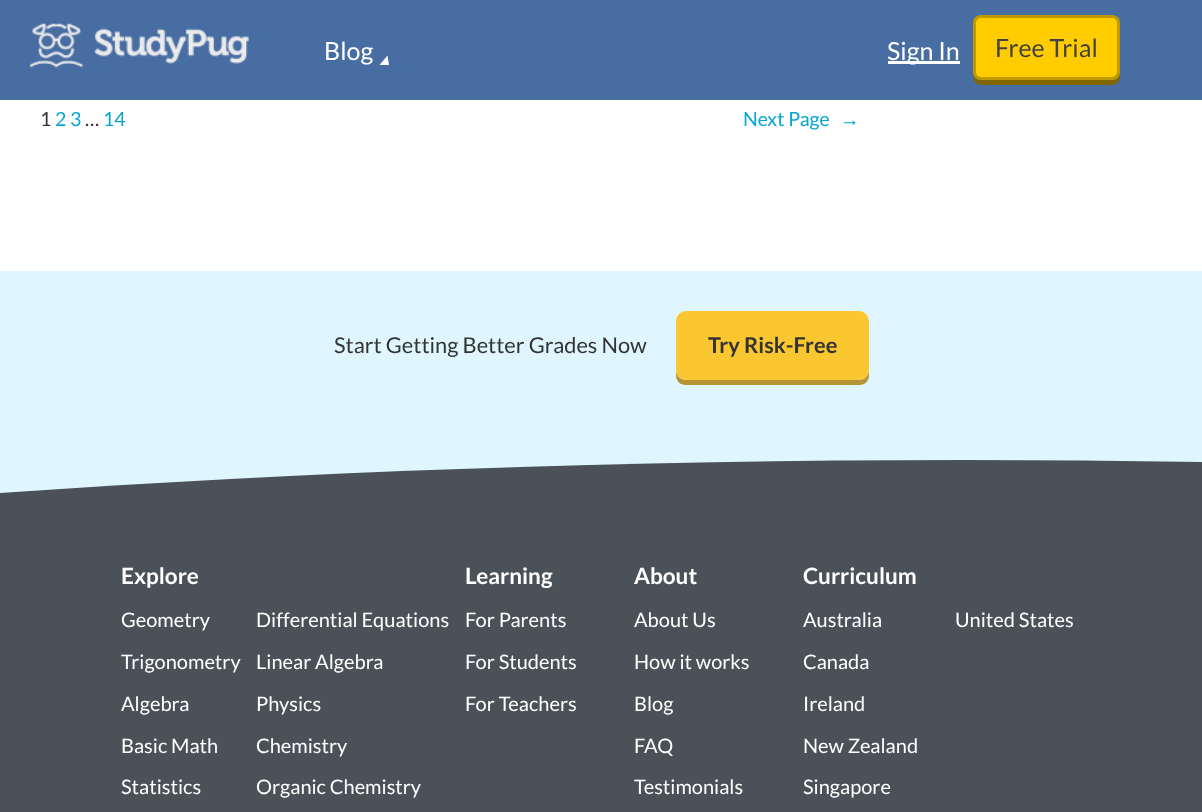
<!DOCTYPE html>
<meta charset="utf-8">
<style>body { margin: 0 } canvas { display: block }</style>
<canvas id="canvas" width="1202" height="812"></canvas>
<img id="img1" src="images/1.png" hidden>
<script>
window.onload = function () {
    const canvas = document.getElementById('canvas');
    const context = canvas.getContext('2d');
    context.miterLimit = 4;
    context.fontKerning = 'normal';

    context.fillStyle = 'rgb(255, 255, 255)';
    context.fillRect(0, 0, 1202, 812);
    context.fillStyle = 'rgb(71, 109, 162)';
    context.fillRect(0, 0, 1202, 100);
    context.drawImage(document.getElementById('img1'), 30, 23, 219, 45);
    context.fillStyle = 'rgb(255, 255, 255)';
    context.beginPath();
    context.moveTo(379.5, 65);
    context.lineTo(387.5, 55.5);
    context.lineTo(389, 65);
    context.closePath();
    context.fill();
    context.fillRect(888, 61, 72, 3);
    context.fillStyle = 'rgb(127, 102, 0)';
    context.beginPath();
    context.moveTo(973, 75);
    context.lineTo(973, 77);
    context.bezierCurveTo(973, 81, 977, 85, 981, 85);
    context.lineTo(1112, 85);
    context.bezierCurveTo(1116, 85, 1120, 81, 1120, 77);
    context.lineTo(1120, 72);
    context.bezierCurveTo(1120, 77, 1117, 80, 1112, 80);
    context.lineTo(980, 80);
    context.bezierCurveTo(977, 80, 974, 78, 973, 75);
    context.closePath();
    context.fill();
    context.fillStyle = 'rgb(255, 204, 0)';
    context.beginPath();
    context.roundRect(973, 15, 147, 65, 8);
    context.fill();
    context.beginPath();
    context.roundRect(974.5, 16.5, 144, 62, 6.5);
    context.strokeStyle = 'rgba(0, 0, 0, 0.25)';
    context.lineWidth = 3;
    context.stroke();
    context.fillStyle = 'rgb(224, 246, 255)';
    context.fillRect(0, 271, 1202, 222);
    context.fillStyle = 'rgb(240, 198, 71)';
    context.beginPath();
    context.moveTo(676, 324);
    context.lineTo(676, 375);
    context.bezierCurveTo(676, 381, 680, 385, 686, 385);
    context.lineTo(859, 385);
    context.bezierCurveTo(865, 385, 869, 381, 869, 375);
    context.lineTo(869, 324);
    context.lineTo(869, 370);
    context.bezierCurveTo(869, 376, 864, 380, 859, 380);
    context.lineTo(686, 380);
    context.bezierCurveTo(681, 380, 676, 376, 676, 370);
    context.closePath();
    context.fill();
    context.fillStyle = 'rgba(0, 0, 0, 0.25)';
    context.beginPath();
    context.moveTo(676, 324);
    context.lineTo(676, 375);
    context.bezierCurveTo(676, 381, 680, 385, 686, 385);
    context.lineTo(859, 385);
    context.bezierCurveTo(865, 385, 869, 381, 869, 375);
    context.lineTo(869, 324);
    context.lineTo(869, 370);
    context.bezierCurveTo(869, 376, 864, 380, 859, 380);
    context.lineTo(686, 380);
    context.bezierCurveTo(681, 380, 676, 376, 676, 370);
    context.closePath();
    context.fill();
    context.fillStyle = 'rgb(250, 199, 49)';
    context.beginPath();
    context.roundRect(676, 311, 193, 69, 10);
    context.fill();
    context.fillStyle = 'rgb(75, 81, 88)';
    context.beginPath();
    context.moveTo(962, 460);
    context.bezierCurveTo(1043, 460, 1123, 461, 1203, 462);
    context.lineTo(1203, 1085);
    context.lineTo(0, 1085);
    context.lineTo(0, 493);
    context.bezierCurveTo(302, 472, 626, 460, 962, 460);
    context.closePath();
    context.fill();
    context.font = '25px Lato';
    context.fillStyle = 'rgb(255, 255, 255)';
    context.fillText('Blog', 324, 60);
    context.fillText('Sign In', 887, 60);
    context.fillStyle = 'rgb(66, 66, 66)';
    context.fillText('Free Trial', 995, 57);
    context.font = '19.5px Lato';
    context.fillStyle = 'rgb(51, 51, 51)';
    context.fillText('1', 40, 126);
    context.fillStyle = 'rgb(5, 167, 207)';
    context.fillText('2 3', 55, 126);
    context.fillStyle = 'rgb(51, 51, 51)';
    context.fillText('…', 85, 126);
    context.fillStyle = 'rgb(5, 167, 207)';
    context.fillText('14', 103, 126);
    context.fillText('Next Page', 743, 126);
    context.font = '19.5px Liberation Sans';
    context.fillText('→', 840, 126);
    context.font = '21.8px Lato';
    context.fillStyle = 'rgb(51, 51, 51)';
    context.fillText('Start Getting Better Grades Now', 334, 353);
    context.font = 'bold 21.8px Lato';
    context.fillText('Try Risk-Free', 708, 353);
    context.font = 'bold 22.5px Lato';
    context.fillStyle = 'rgb(255, 255, 255)';
    context.fillText('Explore', 121, 584);
    context.font = '20px Lato';
    context.fillText('Geometry', 121, 627);
    context.fillText('Differential Equations', 256, 627);
    context.fillText('Trigonometry', 121, 669);
    context.fillText('Linear Algebra', 256, 669);
    context.fillText('Algebra', 121, 711);
    context.fillText('Physics', 256, 711);
    context.fillText('Basic Math', 121, 753);
    context.fillText('Chemistry', 256, 753);
    context.fillText('Statistics', 121, 794);
    context.fillText('Organic Chemistry', 256, 794);
    context.font = 'bold 22.5px Lato';
    context.fillText('Learning', 465, 584);
    context.font = '20px Lato';
    context.fillText('For Parents', 465, 627);
    context.fillText('For Students', 465, 669);
    context.fillText('For Teachers', 465, 711);
    context.font = 'bold 22.5px Lato';
    context.fillText('About', 634, 584);
    context.font = '20px Lato';
    context.fillText('About Us', 634, 627);
    context.fillText('How it works', 634, 669);
    context.fillText('Blog', 634, 711);
    context.fillText('FAQ', 634, 753);
    context.fillText('Testimonials', 634, 794);
    context.font = 'bold 22.5px Lato';
    context.fillText('Curriculum', 803, 584);
    context.font = '20px Lato';
    context.fillText('Australia', 803, 627);
    context.fillText('United States', 955, 627);
    context.fillText('Canada', 803, 669);
    context.fillText('Ireland', 803, 711);
    context.fillText('New Zealand', 803, 753);
    context.fillText('Singapore', 803, 794);
};
</script>
